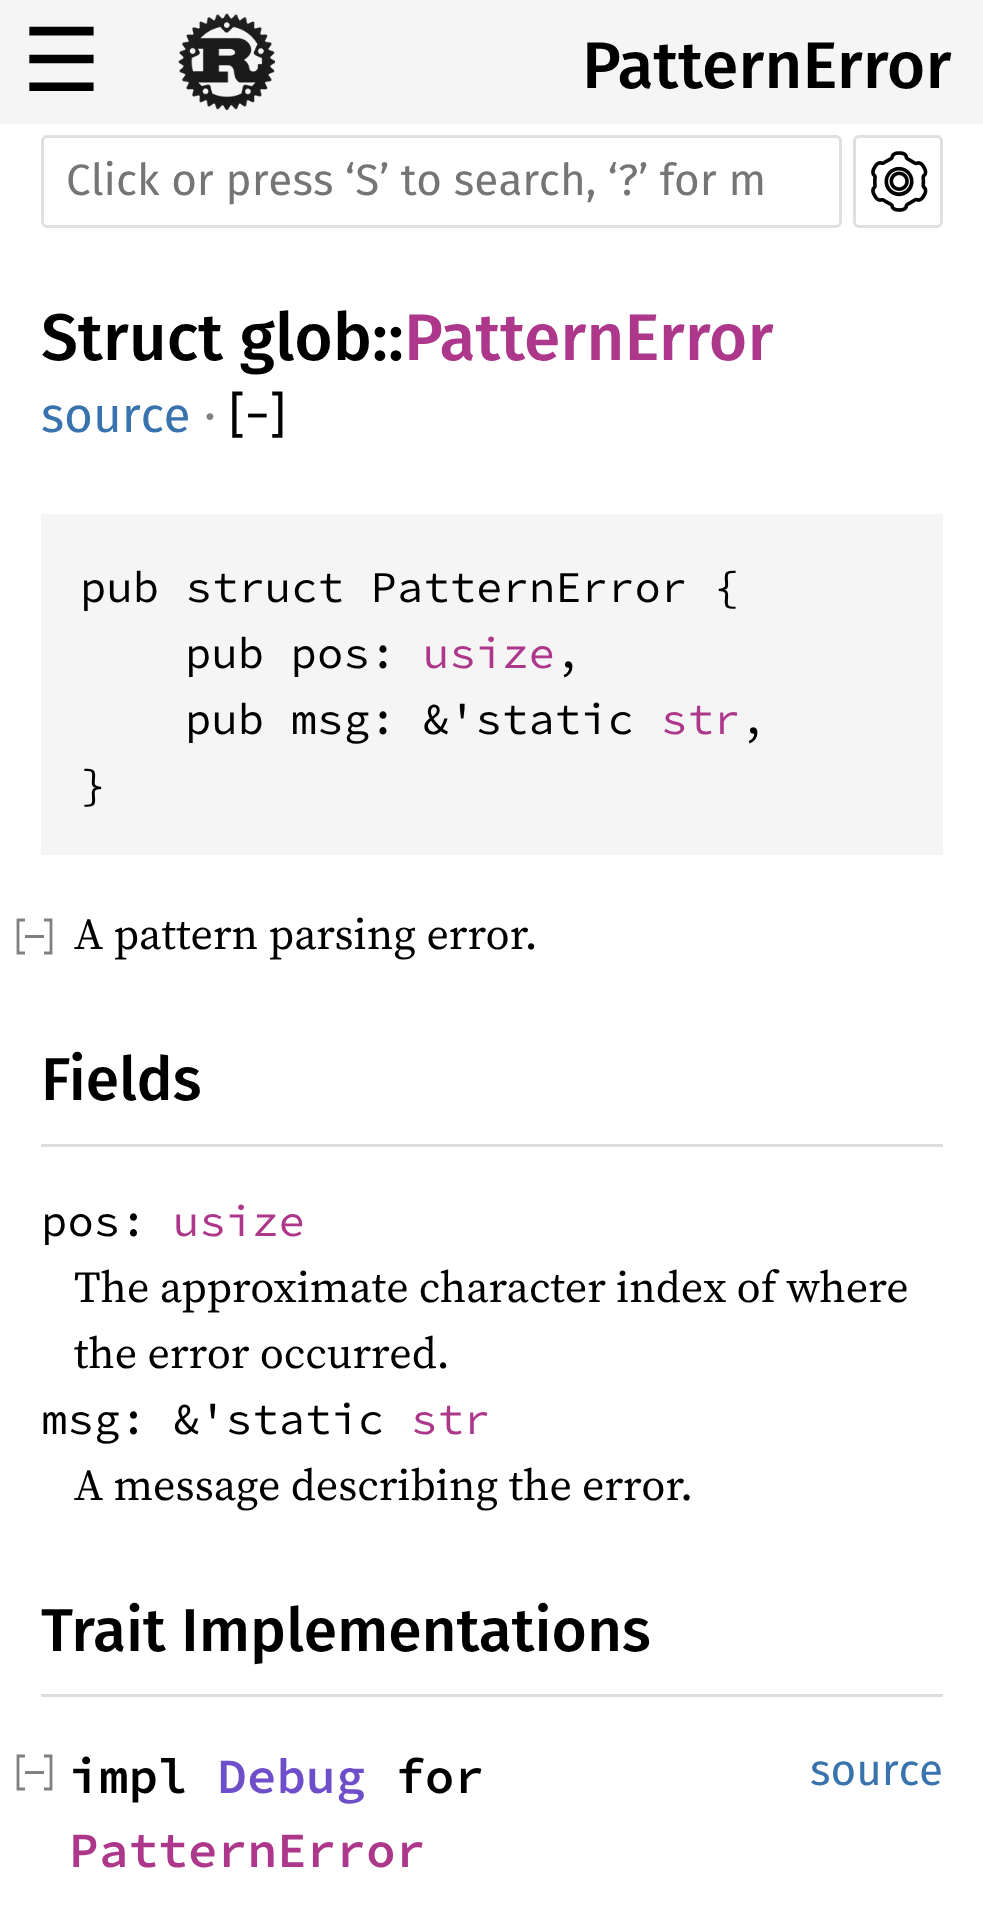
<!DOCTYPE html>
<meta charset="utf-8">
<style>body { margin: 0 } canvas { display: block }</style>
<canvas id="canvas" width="983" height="1909"></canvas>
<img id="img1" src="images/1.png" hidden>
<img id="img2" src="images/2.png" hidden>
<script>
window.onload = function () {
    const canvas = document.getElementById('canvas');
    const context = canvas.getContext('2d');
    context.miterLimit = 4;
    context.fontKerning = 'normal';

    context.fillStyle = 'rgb(255, 255, 255)';
    context.fillRect(0, 0, 983, 1909);
    context.fillStyle = 'rgb(245, 245, 245)';
    context.fillRect(0, 0, 983, 124);
    context.drawImage(document.getElementById('img1'), 178, 13, 97, 97);
    context.beginPath();
    context.roundRect(42.5, 136.5, 798, 90, 4.5);
    context.strokeStyle = 'rgb(224, 224, 224)';
    context.lineWidth = 3;
    context.stroke();
    context.beginPath();
    context.roundRect(854.5, 136.5, 87, 90, 4.5);
    context.stroke();
    context.drawImage(document.getElementById('img2'), 871, 151, 57, 61);
    context.fillRect(41, 514, 902, 341);
    context.beginPath();
    context.moveTo(25, 920);
    context.lineTo(18, 920);
    context.lineTo(18, 953);
    context.lineTo(25, 953);
    context.moveTo(44, 920);
    context.lineTo(51, 920);
    context.lineTo(51, 953);
    context.lineTo(44, 953);
    context.moveTo(25, 936.5);
    context.lineTo(44, 936.5);
    context.strokeStyle = 'rgb(128, 128, 128)';
    context.lineWidth = 2.8;
    context.stroke();
    context.fillStyle = 'rgb(221, 221, 221)';
    context.fillRect(41, 1144, 902, 3);
    context.fillRect(41, 1694, 902, 3);
    context.beginPath();
    context.moveTo(25, 1756);
    context.lineTo(18, 1756);
    context.lineTo(18, 1789);
    context.lineTo(25, 1789);
    context.moveTo(44, 1756);
    context.lineTo(51, 1756);
    context.lineTo(51, 1789);
    context.lineTo(44, 1789);
    context.moveTo(25, 1772.5);
    context.lineTo(44, 1772.5);
    context.stroke();
    context.font = '88px DejaVu Sans';
    context.fillStyle = 'rgb(0, 0, 0)';
    context.fillText('☰', 22, 91);
    context.font = '500 66px Fira Sans';
    context.fillText('PatternError', 582, 88);
    context.font = '44px Fira Sans';
    context.fillStyle = 'rgb(117, 117, 117)';
    context.fillText('Click or press ‘S’ to search, ‘?’ for m', 66, 195);
    context.font = '500 66px Fira Sans';
    context.fillStyle = 'rgb(0, 0, 0)';
    context.fillText('Struct glob::', 41, 360);
    context.fillStyle = 'rgb(173, 55, 138)';
    context.fillText('PatternError', 404, 360);
    context.font = '49.5px Fira Sans';
    context.fillStyle = 'rgb(56, 115, 173)';
    context.fillText('source', 41, 432);
    context.fillStyle = 'rgb(128, 128, 128)';
    context.fillText('·', 204, 432);
    context.fillStyle = 'rgb(0, 0, 0)';
    context.fillText('[−]', 229, 432);
    context.font = '44px Source Code Pro';
    context.fillText('pub struct PatternError {', 80, 602);
    context.fillText('pub pos:', 185, 668);
    context.fillStyle = 'rgb(173, 55, 138)';
    context.fillText('usize', 423, 668);
    context.fillStyle = 'rgb(0, 0, 0)';
    context.fillText(',', 555, 668);
    context.fillText('pub msg: &\'static', 185, 734);
    context.fillStyle = 'rgb(173, 55, 138)';
    context.fillText('str', 661, 734);
    context.fillStyle = 'rgb(0, 0, 0)';
    context.fillText(',', 740, 734);
    context.fillText('}', 80, 800);
    context.font = '44px "Source Serif 4"';
    context.fillText('A pattern parsing error.', 74, 949);
    context.font = '500 60.5px Fira Sans';
    context.fillText('Fields', 41, 1100);
    context.font = '44px Source Code Pro';
    context.fillText('pos:', 41, 1236);
    context.fillStyle = 'rgb(173, 55, 138)';
    context.fillText('usize', 173, 1236);
    context.font = '44px "Source Serif 4"';
    context.fillStyle = 'rgb(0, 0, 0)';
    context.fillText('The approximate character index of where', 74, 1302);
    context.fillText('the error occurred.', 74, 1368);
    context.font = '44px Source Code Pro';
    context.fillText('msg: &\'static', 41, 1434);
    context.fillStyle = 'rgb(173, 55, 138)';
    context.fillText('str', 411, 1434);
    context.font = '44px "Source Serif 4"';
    context.fillStyle = 'rgb(0, 0, 0)';
    context.fillText('A message describing the error.', 74, 1500);
    context.font = '500 60.5px Fira Sans';
    context.fillText('Trait Implementations', 41, 1651);
    context.font = '600 49.5px Source Code Pro';
    context.fillText('impl', 69, 1793);
    context.fillStyle = 'rgb(110, 79, 201)';
    context.fillText('Debug', 217, 1793);
    context.fillStyle = 'rgb(0, 0, 0)';
    context.fillText('for', 395, 1793);
    context.fillStyle = 'rgb(173, 55, 138)';
    context.fillText('PatternError', 69, 1867);
    context.font = '44px Fira Sans';
    context.fillStyle = 'rgb(56, 115, 173)';
    context.fillText('source', 810, 1785);
};
</script>
